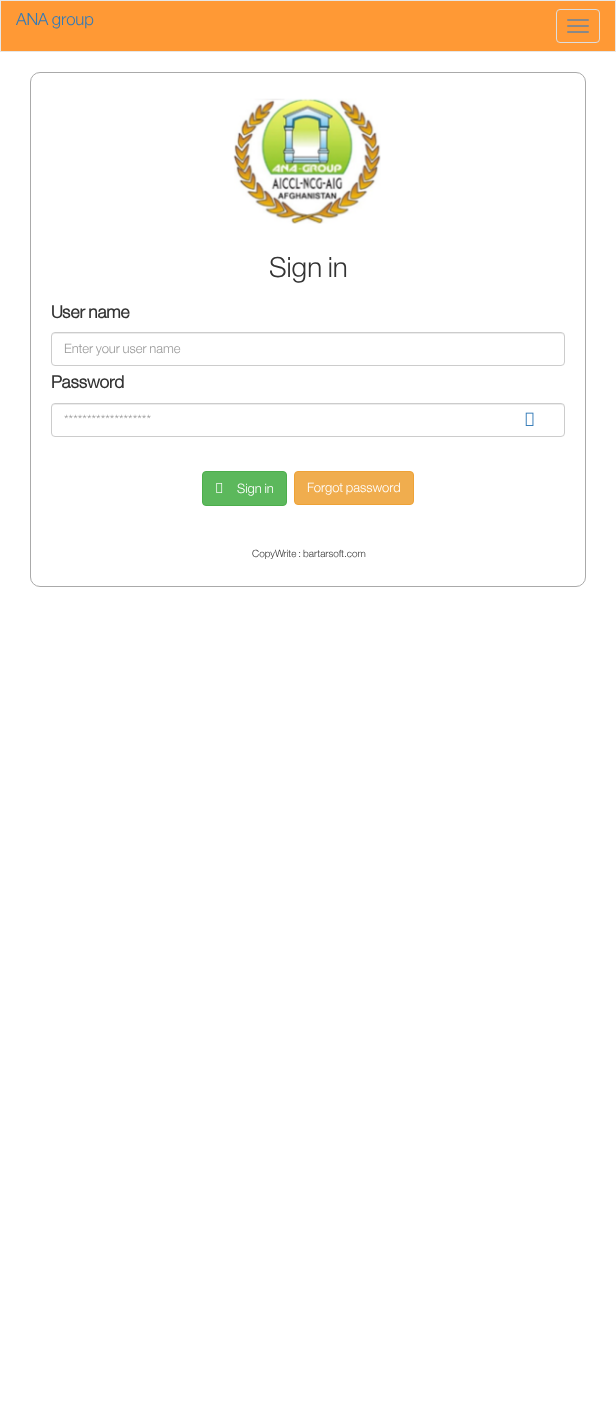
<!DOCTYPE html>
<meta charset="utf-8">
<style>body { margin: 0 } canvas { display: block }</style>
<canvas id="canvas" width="616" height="1401"></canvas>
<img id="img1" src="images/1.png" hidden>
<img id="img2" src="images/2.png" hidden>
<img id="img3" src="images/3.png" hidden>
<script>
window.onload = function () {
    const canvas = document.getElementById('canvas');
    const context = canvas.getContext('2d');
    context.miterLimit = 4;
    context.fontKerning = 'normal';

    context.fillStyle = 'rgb(255, 255, 255)';
    context.fillRect(0, 0, 616, 1401);
    context.fillStyle = 'rgb(255, 153, 53)';
    context.beginPath();
    context.rect(0.5, 0.5, 615, 51);
    context.fill();
    context.strokeStyle = 'rgb(231, 231, 231)';
    context.stroke();
    context.beginPath();
    context.roundRect(556.5, 9.5, 43, 33, 3.5);
    context.strokeStyle = 'rgb(221, 221, 221)';
    context.stroke();
    context.fillStyle = 'rgb(136, 136, 136)';
    context.beginPath();
    context.roundRect(567, 19, 22, 2, 1);
    context.fill();
    context.beginPath();
    context.roundRect(567, 25, 22, 2, 1);
    context.fill();
    context.beginPath();
    context.roundRect(567, 31, 22, 2, 1);
    context.fill();
    context.beginPath();
    context.roundRect(30.5, 72.5, 555, 514, 9.5);
    context.strokeStyle = 'rgb(170, 170, 170)';
    context.stroke();
    context.drawImage(document.getElementById('img1'), 233, 98, 148, 126);
    context.fillStyle = 'rgb(236, 236, 236)';
    context.beginPath();
    context.moveTo(55, 334);
    context.lineTo(561, 334);
    context.bezierCurveTo(563, 334, 564, 335, 564, 337);
    context.lineTo(564, 335);
    context.lineTo(562, 333);
    context.lineTo(55, 333);
    context.bezierCurveTo(53, 333, 52, 335, 52, 337);
    context.bezierCurveTo(52, 335, 53, 334, 55, 334);
    context.closePath();
    context.fill();
    context.beginPath();
    context.roundRect(51.5, 332.5, 513, 33, 3.5);
    context.strokeStyle = 'rgb(204, 204, 204)';
    context.stroke();
    context.beginPath();
    context.moveTo(55, 405);
    context.lineTo(561, 405);
    context.bezierCurveTo(563, 405, 564, 406, 564, 408);
    context.lineTo(564, 406);
    context.lineTo(562, 404);
    context.lineTo(55, 404);
    context.bezierCurveTo(53, 404, 52, 406, 52, 408);
    context.bezierCurveTo(52, 406, 53, 405, 55, 405);
    context.closePath();
    context.fill();
    context.beginPath();
    context.roundRect(51.5, 403.5, 513, 33, 3.5);
    context.stroke();
    context.drawImage(document.getElementById('img2'), 525, 412, 9, 14);
    context.fillStyle = 'rgb(92, 184, 92)';
    context.beginPath();
    context.roundRect(202.5, 471.5, 84, 34, 3.5);
    context.fill();
    context.strokeStyle = 'rgb(76, 174, 76)';
    context.stroke();
    context.drawImage(document.getElementById('img3'), 216, 483, 7, 10);
    context.fillStyle = 'rgb(240, 173, 78)';
    context.beginPath();
    context.roundRect(294.5, 471.5, 119, 33, 3.5);
    context.fill();
    context.strokeStyle = 'rgb(238, 162, 54)';
    context.stroke();
    context.font = '300 18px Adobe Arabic';
    context.fillStyle = 'rgb(51, 122, 183)';
    context.fillText('ANA group', 16, 25);
    context.font = '300 30px Adobe Arabic';
    context.fillStyle = 'rgb(51, 51, 51)';
    context.fillText('Sign in', 269, 277);
    context.font = 'bold 18.5px Adobe Arabic';
    context.fillText('User name', 51, 318);
    context.font = '300 14px Adobe Arabic';
    context.fillStyle = 'rgb(153, 153, 153)';
    context.fillText('Enter your user name', 64, 353);
    context.font = 'bold 18.5px Adobe Arabic';
    context.fillStyle = 'rgb(51, 51, 51)';
    context.fillText('Password', 51, 388);
    context.font = '300 14px Adobe Arabic';
    context.fillStyle = 'rgb(153, 153, 153)';
    context.fillText('*******************', 64, 424);
    context.fillStyle = 'rgb(255, 255, 255)';
    context.fillText('Sign in', 237, 493);
    context.fillText('Forgot password', 307, 492);
    context.font = '300 10.75px Adobe Arabic';
    context.fillStyle = 'rgb(51, 51, 51)';
    context.fillText('CopyWrite : bartarsoft.com', 252, 557);
};
</script>
